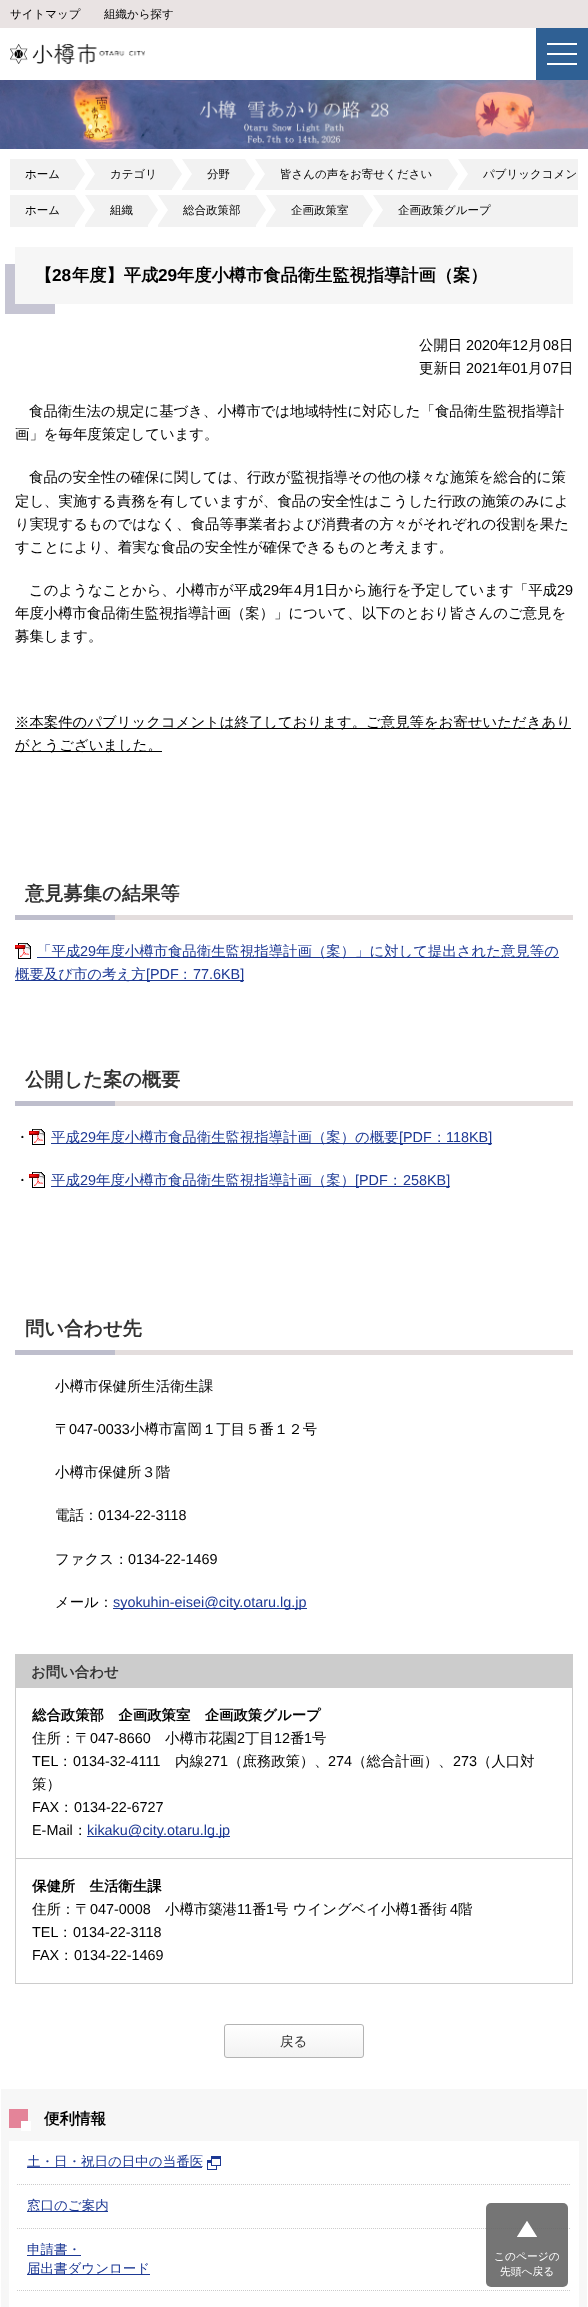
<!DOCTYPE html>
<meta charset="utf-8">
<style>body { margin: 0 } canvas { display: block }</style>
<canvas id="canvas" width="588" height="2307"></canvas>
<img id="img1" src="images/1.png" hidden>
<img id="img2" src="images/2.png" hidden>
<img id="img3" src="images/3.png" hidden>
<img id="img4" src="images/4.png" hidden>
<img id="img5" src="images/5.png" hidden>
<script>
window.onload = function () {
    const canvas = document.getElementById('canvas');
    const context = canvas.getContext('2d');
    context.miterLimit = 4;
    context.fontKerning = 'normal';
    let gradient;

    context.fillStyle = 'rgb(255, 255, 255)';
    context.fillRect(0, 0, 588, 2307);
    context.fillStyle = 'rgb(233, 227, 227)';
    context.fillRect(0, 0, 588, 28);
    context.drawImage(document.getElementById('img1'), 10, 44, 135, 20);
    context.fillStyle = 'rgb(47, 96, 148)';
    context.fillRect(536, 28, 52, 52);
    context.fillStyle = 'rgb(255, 255, 255)';
    context.fillRect(547, 53, 30, 2);
    context.fillRect(547, 43, 30, 2);
    context.fillRect(547, 63, 30, 2);
    context.drawImage(document.getElementById('img2'), 0, 80, 588, 69);
    context.fillStyle = 'rgb(242, 242, 242)';
    context.fillRect(10, 159, 568, 31);
    context.fillStyle = 'rgb(255, 255, 255)';
    context.fillRect(75, 159, 10, 31);
    context.fillStyle = 'rgb(242, 242, 242)';
    context.beginPath();
    context.moveTo(75, 189);
    context.lineTo(75, 159);
    context.lineTo(85, 174);
    context.closePath();
    context.fill();
    context.fillStyle = 'rgb(255, 255, 255)';
    context.fillRect(172, 159, 10, 31);
    context.beginPath();
    context.moveTo(85, 189);
    context.lineTo(85, 159);
    context.lineTo(95, 174);
    context.closePath();
    context.fill();
    context.fillStyle = 'rgb(242, 242, 242)';
    context.beginPath();
    context.moveTo(172, 189);
    context.lineTo(172, 159);
    context.lineTo(182, 174);
    context.closePath();
    context.fill();
    context.fillStyle = 'rgb(255, 255, 255)';
    context.fillRect(245, 159, 10, 31);
    context.beginPath();
    context.moveTo(182, 189);
    context.lineTo(182, 159);
    context.lineTo(192, 174);
    context.closePath();
    context.fill();
    context.fillStyle = 'rgb(242, 242, 242)';
    context.beginPath();
    context.moveTo(245, 189);
    context.lineTo(245, 159);
    context.lineTo(255, 174);
    context.closePath();
    context.fill();
    context.fillStyle = 'rgb(255, 255, 255)';
    context.fillRect(448, 159, 10, 31);
    context.beginPath();
    context.moveTo(255, 189);
    context.lineTo(255, 159);
    context.lineTo(265, 174);
    context.closePath();
    context.fill();
    context.fillStyle = 'rgb(242, 242, 242)';
    context.beginPath();
    context.moveTo(448, 189);
    context.lineTo(448, 159);
    context.lineTo(458, 174);
    context.closePath();
    context.fill();
    context.fillStyle = 'rgb(255, 255, 255)';
    context.beginPath();
    context.moveTo(458, 189);
    context.lineTo(458, 159);
    context.lineTo(468, 174);
    context.closePath();
    context.fill();
    context.fillStyle = 'rgb(242, 242, 242)';
    context.fillRect(10, 195, 568, 32);
    context.fillStyle = 'rgb(255, 255, 255)';
    context.fillRect(75, 195, 10, 32);
    context.fillStyle = 'rgb(242, 242, 242)';
    context.beginPath();
    context.moveTo(75, 225);
    context.lineTo(75, 195);
    context.lineTo(85, 210);
    context.closePath();
    context.fill();
    context.fillStyle = 'rgb(255, 255, 255)';
    context.fillRect(148, 195, 10, 32);
    context.beginPath();
    context.moveTo(85, 225);
    context.lineTo(85, 195);
    context.lineTo(95, 210);
    context.closePath();
    context.fill();
    context.fillStyle = 'rgb(242, 242, 242)';
    context.beginPath();
    context.moveTo(148, 225);
    context.lineTo(148, 195);
    context.lineTo(158, 210);
    context.closePath();
    context.fill();
    context.fillStyle = 'rgb(255, 255, 255)';
    context.fillRect(256, 195, 10, 32);
    context.beginPath();
    context.moveTo(158, 225);
    context.lineTo(158, 195);
    context.lineTo(168, 210);
    context.closePath();
    context.fill();
    context.fillStyle = 'rgb(242, 242, 242)';
    context.beginPath();
    context.moveTo(256, 225);
    context.lineTo(256, 195);
    context.lineTo(266, 210);
    context.closePath();
    context.fill();
    context.fillStyle = 'rgb(255, 255, 255)';
    context.fillRect(363, 195, 10, 32);
    context.beginPath();
    context.moveTo(266, 225);
    context.lineTo(266, 195);
    context.lineTo(276, 210);
    context.closePath();
    context.fill();
    context.fillStyle = 'rgb(242, 242, 242)';
    context.beginPath();
    context.moveTo(363, 225);
    context.lineTo(363, 195);
    context.lineTo(373, 210);
    context.closePath();
    context.fill();
    context.fillStyle = 'rgb(255, 255, 255)';
    context.beginPath();
    context.moveTo(373, 225);
    context.lineTo(373, 195);
    context.lineTo(383, 210);
    context.closePath();
    context.fill();
    context.fillStyle = 'rgb(198, 197, 211)';
    context.fillRect(5, 264, 50, 50);
    context.fillStyle = 'rgb(246, 246, 246)';
    context.fillRect(15, 247, 558, 57);
    context.fillStyle = 'rgb(0, 0, 0)';
    context.fillRect(15, 728, 556, 1);
    context.fillRect(15, 751, 147, 1);
    context.fillStyle = 'rgb(227, 221, 221)';
    context.fillRect(115, 915, 458, 5);
    context.fillStyle = 'rgb(190, 190, 204)';
    context.fillRect(15, 915, 100, 5);
    context.drawImage(document.getElementById('img3'), 15, 943, 16, 16);
    context.fillStyle = 'rgb(29, 57, 148)';
    context.fillRect(37, 957, 522, 1);
    context.fillRect(15, 980, 229, 1);
    context.fillStyle = 'rgb(227, 221, 221)';
    context.fillRect(115, 1101, 458, 5);
    context.fillStyle = 'rgb(190, 190, 204)';
    context.fillRect(15, 1101, 100, 5);
    context.drawImage(document.getElementById('img3'), 29, 1129, 16, 16);
    context.fillStyle = 'rgb(29, 57, 148)';
    context.fillRect(51, 1143, 441, 1);
    context.drawImage(document.getElementById('img3'), 29, 1172, 16, 16);
    context.fillRect(51, 1186, 399, 1);
    context.fillStyle = 'rgb(227, 221, 221)';
    context.fillRect(115, 1350, 458, 5);
    context.fillStyle = 'rgb(190, 190, 204)';
    context.fillRect(15, 1350, 100, 5);
    context.fillStyle = 'rgb(29, 57, 148)';
    context.fillRect(113, 1608, 194, 1);
    context.fillStyle = 'rgb(204, 204, 204)';
    context.fillRect(15, 1654, 558, 34);
    context.fillRect(572, 1688, 1, 296);
    context.fillRect(15, 1858, 558, 1);
    context.fillRect(15, 1688, 1, 171);
    context.fillStyle = 'rgb(29, 57, 148)';
    context.fillRect(87, 1836, 143, 1);
    context.fillStyle = 'rgb(204, 204, 204)';
    context.fillRect(15, 1983, 558, 1);
    context.fillRect(15, 1859, 1, 125);
    gradient = context.createLinearGradient(294, 2024, 294, 2058);
    gradient.addColorStop(0, 'rgb(255, 255, 255)');
    gradient.addColorStop(1, 'rgb(242, 242, 242)');
    context.fillStyle = gradient;
    context.beginPath();
    context.roundRect(224.5, 2024.5, 139, 33, 2.5);
    context.fill();
    context.strokeStyle = 'rgb(179, 179, 179)';
    context.stroke();
    context.fillStyle = 'rgb(247, 247, 247)';
    context.fillRect(1, 2089, 586, 218);
    context.fillStyle = 'rgb(228, 132, 153)';
    context.fillRect(9, 2109, 19, 19);
    context.fillStyle = 'rgb(255, 255, 255)';
    context.fillRect(21, 2121, 10, 10);
    context.fillRect(9, 2141, 570, 166);
    context.beginPath();
    context.moveTo(17, 2184.5);
    context.lineTo(571, 2184.5);
    context.strokeStyle = 'rgb(204, 204, 204)';
    context.setLineDash([1, 1]);
    context.stroke();
    context.fillStyle = 'rgb(29, 57, 148)';
    context.fillRect(27, 2167, 175, 1);
    context.drawImage(document.getElementById('img4'), 207, 2156, 14, 14);
    context.beginPath();
    context.moveTo(17, 2228.5);
    context.lineTo(571, 2228.5);
    context.stroke();
    context.fillRect(27, 2211, 81, 1);
    context.beginPath();
    context.moveTo(17, 2290.5);
    context.lineTo(571, 2290.5);
    context.stroke();
    context.fillRect(27, 2255, 54, 1);
    context.fillRect(27, 2274, 123, 1);
    context.fillStyle = 'rgba(102, 102, 102, 0.9)';
    context.beginPath();
    context.roundRect(486, 2203, 82, 84, 5);
    context.fill();
    context.drawImage(document.getElementById('img5'), 517, 2221, 20, 16);
    context.font = '500 11.5px WenQuanYi Zen Hei';
    context.fillStyle = 'rgb(0, 0, 0)';
    context.fillText('サイトマップ', 10, 18);
    context.fillText('組織から探す', 104, 18);
    context.fillText('ホーム', 25, 178);
    context.fillText('カテゴリ', 110, 178);
    context.fillText('分野', 207, 178);
    context.fillText('皆さんの声をお寄せください', 280, 178);
    context.fillText('パブリックコメン', 483, 178);
    context.fillText('ホーム', 25, 214);
    context.fillText('組織', 110, 214);
    context.fillText('総合政策部', 183, 214);
    context.fillText('企画政策室', 291, 214);
    context.fillText('企画政策グループ', 398, 214);
    context.font = 'bold 17.25px WenQuanYi Zen Hei';
    context.fillText('【', 35, 281);
    context.font = 'bold 17.25px Liberation Sans';
    context.fillText('28', 52, 281);
    context.font = 'bold 17.25px WenQuanYi Zen Hei';
    context.fillText('年度】平成', 72, 281);
    context.font = 'bold 17.25px Liberation Sans';
    context.fillText('29', 158, 281);
    context.font = 'bold 17.25px WenQuanYi Zen Hei';
    context.fillText('年度小樽市食品衛生監視指導計画（案）', 177, 281);
    context.font = '500 14.4px WenQuanYi Zen Hei';
    context.fillText('公開日', 419, 350);
    context.font = '14.4px Liberation Sans';
    context.fillText('2020', 466, 350);
    context.font = '500 14.4px WenQuanYi Zen Hei';
    context.fillText('年', 498, 350);
    context.font = '14.4px Liberation Sans';
    context.fillText('12', 512, 350);
    context.font = '500 14.4px WenQuanYi Zen Hei';
    context.fillText('月', 528, 350);
    context.font = '14.4px Liberation Sans';
    context.fillText('08', 543, 350);
    context.font = '500 14.4px WenQuanYi Zen Hei';
    context.fillText('日', 559, 350);
    context.fillText('更新日', 419, 373);
    context.font = '14.4px Liberation Sans';
    context.fillText('2021', 466, 373);
    context.font = '500 14.4px WenQuanYi Zen Hei';
    context.fillText('年', 498, 373);
    context.font = '14.4px Liberation Sans';
    context.fillText('01', 512, 373);
    context.font = '500 14.4px WenQuanYi Zen Hei';
    context.fillText('月', 528, 373);
    context.font = '14.4px Liberation Sans';
    context.fillText('07', 543, 373);
    context.font = '500 14.4px WenQuanYi Zen Hei';
    context.fillText('日', 559, 373);
    context.fillText('食品衛生法の規定に基づき、小樽市では地域特性に対応した「食品衛生監視指導計', 29, 416);
    context.fillText('画」を毎年度策定しています。', 15, 439);
    context.fillText('食品の安全性の確保に関しては、行政が監視指導その他の様々な施策を総合的に策', 29, 482);
    context.fillText('定し、実施する責務を有していますが、食品の安全性はこうした行政の施策のみによ', 15, 506);
    context.fillText('り実現するものではなく、食品等事業者および消費者の方々がそれぞれの役割を果た', 15, 529);
    context.fillText('すことにより、着実な食品の安全性が確保できるものと考えます。', 15, 552);
    context.fillText('このようなことから、小樽市が平成', 29, 595);
    context.font = '14.4px Liberation Sans';
    context.fillText('29', 263, 595);
    context.font = '500 14.4px WenQuanYi Zen Hei';
    context.fillText('年', 279, 595);
    context.font = '14.4px Liberation Sans';
    context.fillText('4', 294, 595);
    context.font = '500 14.4px WenQuanYi Zen Hei';
    context.fillText('月', 302, 595);
    context.font = '14.4px Liberation Sans';
    context.fillText('1', 316, 595);
    context.font = '500 14.4px WenQuanYi Zen Hei';
    context.fillText('日から施行を予定しています「平成', 324, 595);
    context.font = '14.4px Liberation Sans';
    context.fillText('29', 557, 595);
    context.font = '500 14.4px WenQuanYi Zen Hei';
    context.fillText('年度小樽市食品衛生監視指導計画（案）」について、以下のとおり皆さんのご意見を', 15, 618);
    context.fillText('募集します。', 15, 641);
    context.fillText('※本案件のパブリックコメントは終了しております。ご意見等をお寄せいただきあり', 15, 727);
    context.fillText('がとうございました。', 15, 750);
    context.font = 'bold 19.25px WenQuanYi Zen Hei';
    context.fillStyle = 'rgb(51, 51, 51)';
    context.fillText('意見募集の結果等', 25, 900);
    context.font = '500 14.4px WenQuanYi Zen Hei';
    context.fillStyle = 'rgb(29, 57, 148)';
    context.fillText('「平成', 37, 956);
    context.font = '14.4px Liberation Sans';
    context.fillText('29', 80, 956);
    context.font = '500 14.4px WenQuanYi Zen Hei';
    context.fillText('年度小樽市食品衛生監視指導計画（案）」に対して提出された意見等の', 96, 956);
    context.fillText('概要及び市の考え方', 15, 979);
    context.font = '14.4px Liberation Sans';
    context.fillText('[PDF', 146, 979);
    context.font = '500 14.4px WenQuanYi Zen Hei';
    context.fillText('：', 178, 979);
    context.font = '14.4px Liberation Sans';
    context.fillText('77.6KB]', 193, 979);
    context.font = 'bold 19.25px WenQuanYi Zen Hei';
    context.fillStyle = 'rgb(51, 51, 51)';
    context.fillText('公開した案の概要', 25, 1086);
    context.font = '500 14.4px WenQuanYi Zen Hei';
    context.fillStyle = 'rgb(0, 0, 0)';
    context.fillText('・', 15, 1142);
    context.fillStyle = 'rgb(29, 57, 148)';
    context.fillText('平成', 51, 1142);
    context.font = '14.4px Liberation Sans';
    context.fillText('29', 80, 1142);
    context.font = '500 14.4px WenQuanYi Zen Hei';
    context.fillText('年度小樽市食品衛生監視指導計画（案）の概要', 96, 1142);
    context.font = '14.4px Liberation Sans';
    context.fillText('[PDF', 399, 1142);
    context.font = '500 14.4px WenQuanYi Zen Hei';
    context.fillText('：', 432, 1142);
    context.font = '14.4px Liberation Sans';
    context.fillText('118KB]', 446, 1142);
    context.font = '500 14.4px WenQuanYi Zen Hei';
    context.fillStyle = 'rgb(0, 0, 0)';
    context.fillText('・', 15, 1185);
    context.fillStyle = 'rgb(29, 57, 148)';
    context.fillText('平成', 51, 1185);
    context.font = '14.4px Liberation Sans';
    context.fillText('29', 80, 1185);
    context.font = '500 14.4px WenQuanYi Zen Hei';
    context.fillText('年度小樽市食品衛生監視指導計画（案）', 96, 1185);
    context.font = '14.4px Liberation Sans';
    context.fillText('[PDF', 355, 1185);
    context.font = '500 14.4px WenQuanYi Zen Hei';
    context.fillText('：', 388, 1185);
    context.font = '14.4px Liberation Sans';
    context.fillText('258KB]', 403, 1185);
    context.font = 'bold 19.25px WenQuanYi Zen Hei';
    context.fillStyle = 'rgb(51, 51, 51)';
    context.fillText('問い合わせ先', 25, 1335);
    context.font = '500 14.4px WenQuanYi Zen Hei';
    context.fillStyle = 'rgb(0, 0, 0)';
    context.fillText('小樽市保健所生活衛生課', 55, 1391);
    context.fillText('〒', 55, 1434);
    context.font = '14.4px Liberation Sans';
    context.fillText('047-0033', 69, 1434);
    context.font = '500 14.4px WenQuanYi Zen Hei';
    context.fillText('小樽市富岡１丁目５番１２号', 130, 1434);
    context.fillText('小樽市保健所３階', 55, 1477);
    context.fillText('電話：', 55, 1520);
    context.font = '14.4px Liberation Sans';
    context.fillText('0134-22-3118', 98, 1520);
    context.font = '500 14.4px WenQuanYi Zen Hei';
    context.fillText('ファクス：', 55, 1564);
    context.font = '14.4px Liberation Sans';
    context.fillText('0134-22-1469', 128, 1564);
    context.font = '500 14.4px WenQuanYi Zen Hei';
    context.fillText('メール：', 55, 1607);
    context.font = '14.4px Liberation Sans';
    context.fillStyle = 'rgb(29, 57, 148)';
    context.fillText('syokuhin-eisei@city.otaru.lg.jp', 113, 1607);
    context.font = 'bold 14.4px WenQuanYi Zen Hei';
    context.fillStyle = 'rgb(51, 51, 51)';
    context.fillText('お問い合わせ', 31, 1677);
    context.fillStyle = 'rgb(0, 0, 0)';
    context.fillText('総合政策部　企画政策室　企画政策グループ', 32, 1720);
    context.font = '500 14.4px WenQuanYi Zen Hei';
    context.fillText('住所：〒', 32, 1743);
    context.font = '14.4px Liberation Sans';
    context.fillText('047-8660', 90, 1743);
    context.font = '500 14.4px WenQuanYi Zen Hei';
    context.fillText('小樽市花園', 165, 1743);
    context.font = '14.4px Liberation Sans';
    context.fillText('2', 237, 1743);
    context.font = '500 14.4px WenQuanYi Zen Hei';
    context.fillText('丁目', 245, 1743);
    context.font = '14.4px Liberation Sans';
    context.fillText('12', 274, 1743);
    context.font = '500 14.4px WenQuanYi Zen Hei';
    context.fillText('番', 290, 1743);
    context.font = '14.4px Liberation Sans';
    context.fillText('1', 304, 1743);
    context.font = '500 14.4px WenQuanYi Zen Hei';
    context.fillText('号', 312, 1743);
    context.font = '14.4px Liberation Sans';
    context.fillText('TEL', 32, 1766);
    context.font = '500 14.4px WenQuanYi Zen Hei';
    context.fillText('：', 58, 1766);
    context.font = '14.4px Liberation Sans';
    context.fillText('0134-32-4111', 73, 1766);
    context.font = '500 14.4px WenQuanYi Zen Hei';
    context.fillText('内線', 175, 1766);
    context.font = '14.4px Liberation Sans';
    context.fillText('271', 204, 1766);
    context.font = '500 14.4px WenQuanYi Zen Hei';
    context.fillText('（庶務政策）、', 228, 1766);
    context.font = '14.4px Liberation Sans';
    context.fillText('274', 328, 1766);
    context.font = '500 14.4px WenQuanYi Zen Hei';
    context.fillText('（総合計画）、', 352, 1766);
    context.font = '14.4px Liberation Sans';
    context.fillText('273', 453, 1766);
    context.font = '500 14.4px WenQuanYi Zen Hei';
    context.fillText('（人口対', 477, 1766);
    context.fillText('策）', 32, 1789);
    context.font = '14.4px Liberation Sans';
    context.fillText('FAX', 32, 1812);
    context.font = '500 14.4px WenQuanYi Zen Hei';
    context.fillText('：', 59, 1812);
    context.font = '14.4px Liberation Sans';
    context.fillText('0134-22-6727', 74, 1812);
    context.fillText('E-Mail', 32, 1835);
    context.font = '500 14.4px WenQuanYi Zen Hei';
    context.fillText('：', 73, 1835);
    context.font = '14.4px Liberation Sans';
    context.fillStyle = 'rgb(29, 57, 148)';
    context.fillText('kikaku@city.otaru.lg.jp', 87, 1835);
    context.font = 'bold 14.4px WenQuanYi Zen Hei';
    context.fillStyle = 'rgb(0, 0, 0)';
    context.fillText('保健所　生活衛生課', 32, 1891);
    context.font = '500 14.4px WenQuanYi Zen Hei';
    context.fillText('住所：〒', 32, 1914);
    context.font = '14.4px Liberation Sans';
    context.fillText('047-0008', 90, 1914);
    context.font = '500 14.4px WenQuanYi Zen Hei';
    context.fillText('小樽市築港', 165, 1914);
    context.font = '14.4px Liberation Sans';
    context.fillText('11', 237, 1914);
    context.font = '500 14.4px WenQuanYi Zen Hei';
    context.fillText('番', 252, 1914);
    context.font = '14.4px Liberation Sans';
    context.fillText('1', 266, 1914);
    context.font = '500 14.4px WenQuanYi Zen Hei';
    context.fillText('号 ウイングベイ小樽', 274, 1914);
    context.font = '14.4px Liberation Sans';
    context.fillText('1', 410, 1914);
    context.font = '500 14.4px WenQuanYi Zen Hei';
    context.fillText('番街', 418, 1914);
    context.font = '14.4px Liberation Sans';
    context.fillText('4', 450, 1914);
    context.font = '500 14.4px WenQuanYi Zen Hei';
    context.fillText('階', 458, 1914);
    context.font = '14.4px Liberation Sans';
    context.fillText('TEL', 32, 1937);
    context.font = '500 14.4px WenQuanYi Zen Hei';
    context.fillText('：', 58, 1937);
    context.font = '14.4px Liberation Sans';
    context.fillText('0134-22-3118', 73, 1937);
    context.fillText('FAX', 32, 1960);
    context.font = '500 14.4px WenQuanYi Zen Hei';
    context.fillText('：', 59, 1960);
    context.font = '14.4px Liberation Sans';
    context.fillText('0134-22-1469', 74, 1960);
    context.font = '500 13.5px WenQuanYi Zen Hei';
    context.fillStyle = 'rgb(51, 51, 51)';
    context.fillText('戻る', 280, 2046);
    context.font = 'bold 15.5px WenQuanYi Zen Hei';
    context.fillStyle = 'rgb(0, 0, 0)';
    context.fillText('便利情報', 44, 2124);
    context.font = '500 13.5px WenQuanYi Zen Hei';
    context.fillStyle = 'rgb(29, 57, 148)';
    context.fillText('土・日・祝日の日中の当番医', 27, 2166);
    context.fillText('窓口のご案内', 27, 2210);
    context.fillText('申請書・', 27, 2254);
    context.fillText('届出書ダウンロード', 27, 2273);
    context.font = '500 10.75px WenQuanYi Zen Hei';
    context.fillStyle = 'rgb(255, 255, 255)';
    context.fillText('このページの', 494, 2260);
    context.fillText('先頭へ戻る', 500, 2275);
};
</script>
